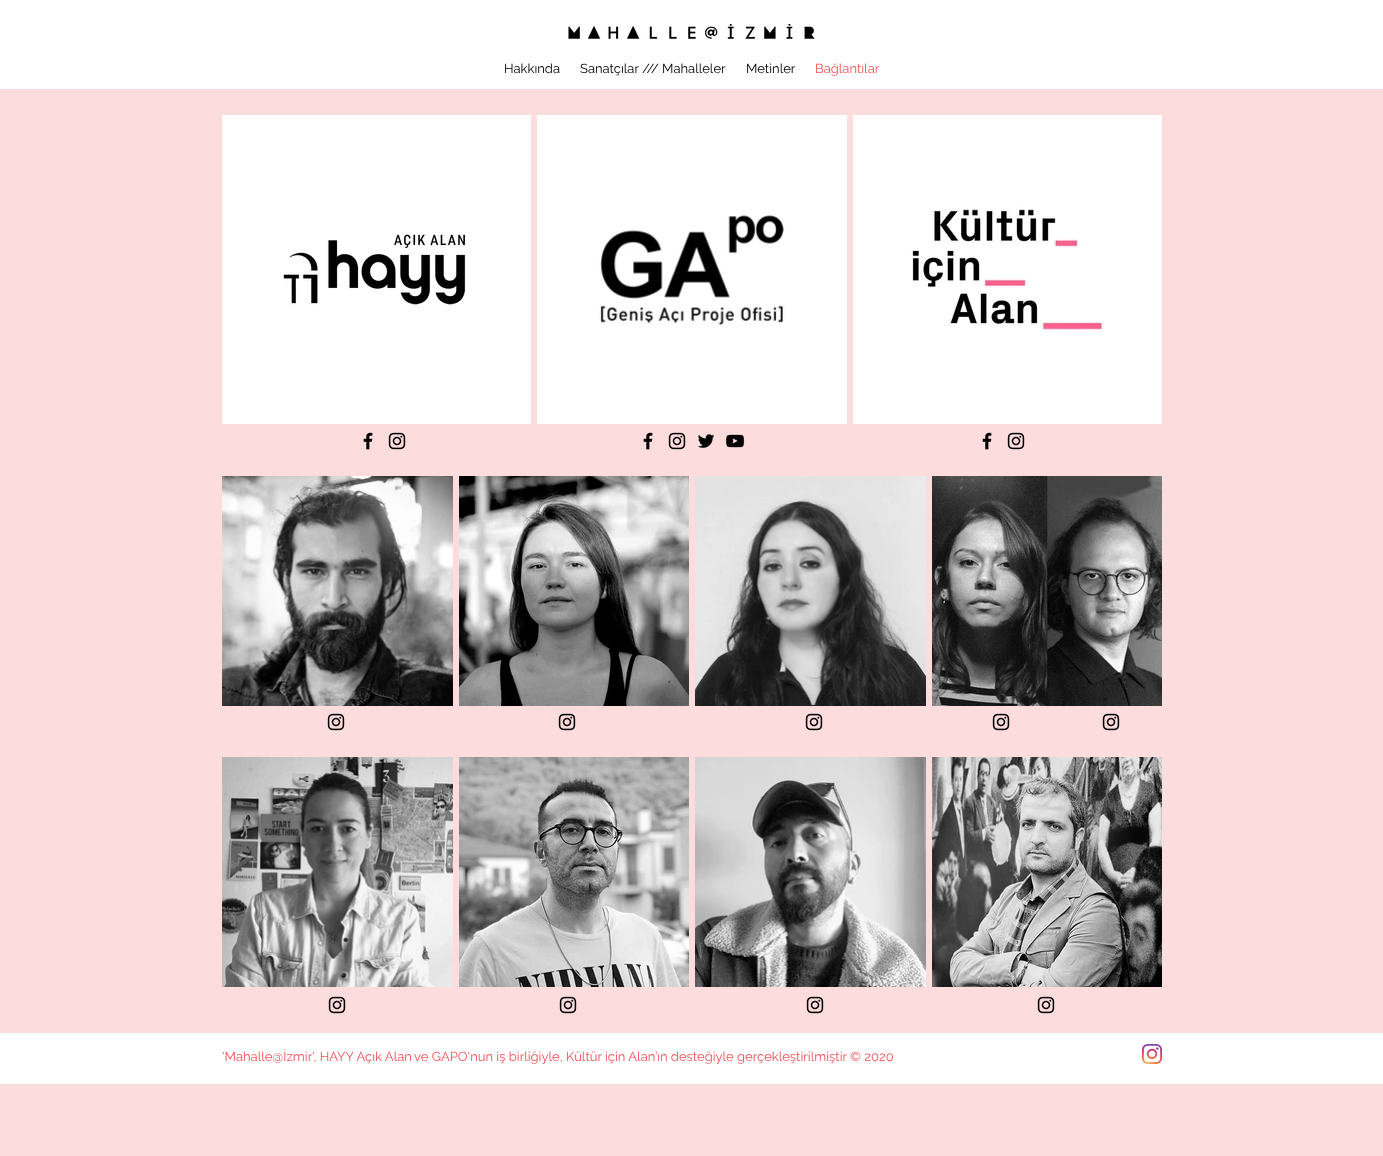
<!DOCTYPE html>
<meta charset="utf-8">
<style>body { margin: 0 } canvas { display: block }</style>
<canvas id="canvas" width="1383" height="1156"></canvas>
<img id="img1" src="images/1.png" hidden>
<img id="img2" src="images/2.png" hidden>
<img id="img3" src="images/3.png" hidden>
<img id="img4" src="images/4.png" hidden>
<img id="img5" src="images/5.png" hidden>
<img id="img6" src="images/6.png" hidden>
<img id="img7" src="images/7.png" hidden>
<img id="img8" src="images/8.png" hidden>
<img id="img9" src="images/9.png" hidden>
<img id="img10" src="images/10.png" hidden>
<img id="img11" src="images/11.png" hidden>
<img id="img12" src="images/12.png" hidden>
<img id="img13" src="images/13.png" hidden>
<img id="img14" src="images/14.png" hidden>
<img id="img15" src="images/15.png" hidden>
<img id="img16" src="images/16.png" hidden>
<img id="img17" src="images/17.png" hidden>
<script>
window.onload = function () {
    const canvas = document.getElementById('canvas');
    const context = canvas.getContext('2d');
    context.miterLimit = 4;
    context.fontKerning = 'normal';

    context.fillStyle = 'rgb(253, 220, 222)';
    context.fillRect(0, 0, 1383, 1156);
    context.fillStyle = 'rgb(255, 255, 255)';
    context.fillRect(0, 0, 1383, 89);
    context.drawImage(document.getElementById('img1'), 568, 24, 247, 15);
    context.drawImage(document.getElementById('img2'), 222, 115, 309, 309);
    context.drawImage(document.getElementById('img3'), 537, 115, 310, 309);
    context.drawImage(document.getElementById('img4'), 853, 115, 309, 309);
    context.drawImage(document.getElementById('img5'), 363, 432, 10, 18);
    context.drawImage(document.getElementById('img6'), 388, 432, 18, 18);
    context.drawImage(document.getElementById('img5'), 643, 432, 10, 18);
    context.drawImage(document.getElementById('img6'), 668, 432, 18, 18);
    context.drawImage(document.getElementById('img7'), 698, 434, 17, 14);
    context.drawImage(document.getElementById('img8'), 726, 434, 19, 14);
    context.drawImage(document.getElementById('img5'), 982, 432, 10, 18);
    context.drawImage(document.getElementById('img6'), 1007, 432, 18, 18);
    context.drawImage(document.getElementById('img9'), 222, 476, 231, 230);
    context.drawImage(document.getElementById('img10'), 459, 476, 230, 230);
    context.drawImage(document.getElementById('img11'), 695, 476, 231, 230);
    context.drawImage(document.getElementById('img12'), 932, 476, 230, 230);
    context.drawImage(document.getElementById('img6'), 327, 713, 18, 18);
    context.drawImage(document.getElementById('img6'), 558, 713, 18, 18);
    context.drawImage(document.getElementById('img6'), 805, 713, 18, 18);
    context.drawImage(document.getElementById('img6'), 992, 713, 18, 18);
    context.drawImage(document.getElementById('img6'), 1102, 713, 18, 18);
    context.drawImage(document.getElementById('img13'), 222, 757, 231, 230);
    context.drawImage(document.getElementById('img14'), 459, 757, 230, 230);
    context.drawImage(document.getElementById('img15'), 695, 757, 231, 230);
    context.drawImage(document.getElementById('img16'), 932, 757, 230, 230);
    context.drawImage(document.getElementById('img6'), 328, 996, 18, 18);
    context.drawImage(document.getElementById('img6'), 559, 996, 18, 18);
    context.drawImage(document.getElementById('img6'), 806, 996, 18, 18);
    context.drawImage(document.getElementById('img6'), 1037, 996, 18, 18);
    context.fillRect(0, 1033, 1383, 51);
    context.drawImage(document.getElementById('img17'), 1142, 1044, 20, 20);
    context.font = '13px Raleway';
    context.fillStyle = 'rgb(0, 0, 0)';
    context.fillText('Hakkında', 504, 73);
    context.fillText('Sanatçılar /// Mahalleler', 580, 73);
    context.fillText('Metinler', 746, 73);
    context.fillStyle = 'rgb(246, 80, 88)';
    context.fillText('Bağlantılar', 815, 73);
    context.fillText('\'Mahalle@İzmir\', HAYY Açık Alan', 222, 1061);
    context.fillText('ve GAPO\'nun iş birliğiyle,', 414, 1061);
    context.fillText('Kültür için Alan', 566, 1061);
    context.fillText('’ın desteğiyle gerçekleştirilmiştir © 2020', 655, 1061);
};
</script>
